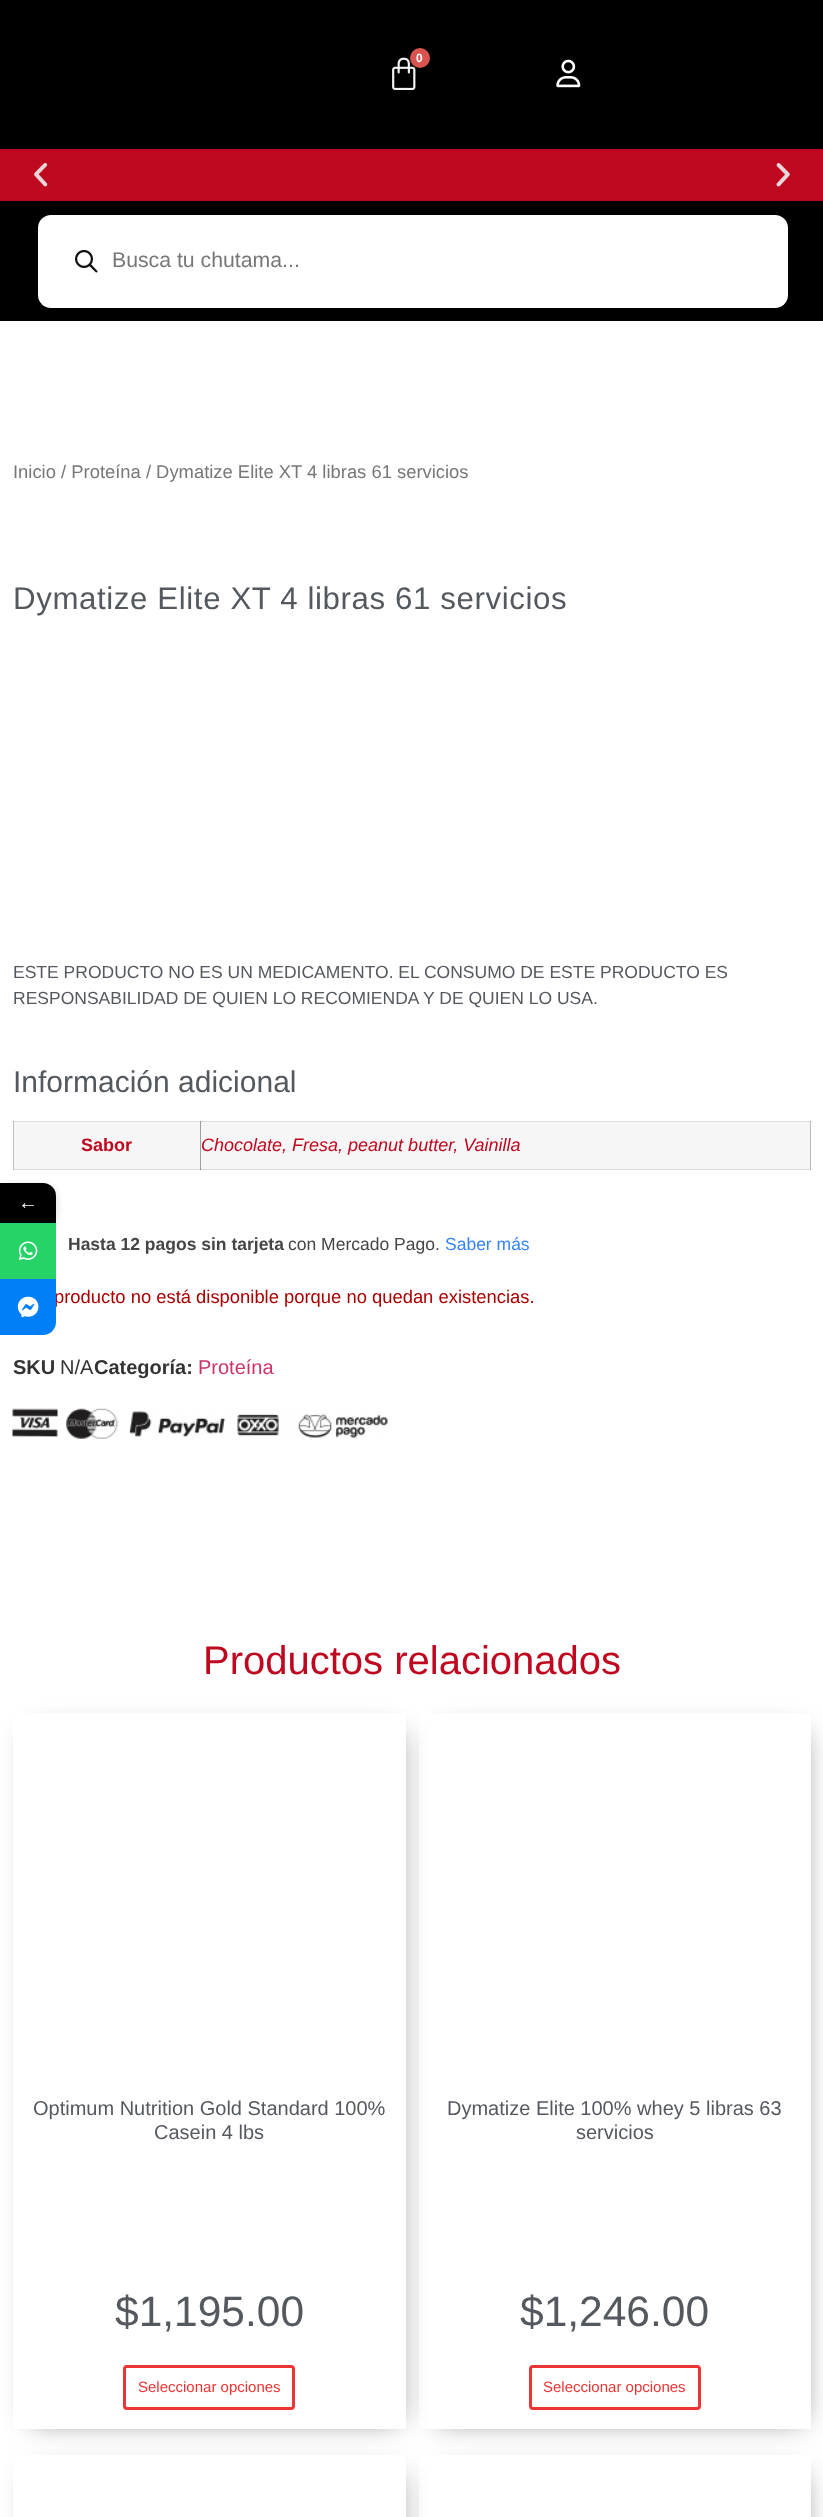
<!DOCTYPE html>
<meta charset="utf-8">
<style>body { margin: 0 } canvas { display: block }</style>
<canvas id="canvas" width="823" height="2517"></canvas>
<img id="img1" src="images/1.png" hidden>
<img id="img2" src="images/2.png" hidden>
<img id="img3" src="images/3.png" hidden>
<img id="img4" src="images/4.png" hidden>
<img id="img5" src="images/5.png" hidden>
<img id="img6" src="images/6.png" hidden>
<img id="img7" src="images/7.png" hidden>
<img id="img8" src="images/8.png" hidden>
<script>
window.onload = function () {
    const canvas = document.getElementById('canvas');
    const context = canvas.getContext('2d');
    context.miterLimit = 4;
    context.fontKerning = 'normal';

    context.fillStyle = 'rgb(255, 255, 255)';
    context.fillRect(0, 0, 823, 2517);
    context.fillStyle = 'rgb(192, 192, 192)';
    context.fillRect(13, 1121, 1, 49);
    context.fillStyle = 'rgb(179, 179, 179)';
    context.fillRect(13, 1169, 1, 1);
    context.fillRect(13, 1121, 1, 1);
    context.fillStyle = 'rgb(0, 0, 0)';
    context.fillRect(0, 0, 823, 149);
    context.drawImage(document.getElementById('img1'), 392, 57, 24, 33);
    context.fillStyle = 'rgb(217, 83, 79)';
    context.beginPath();
    context.arc(420, 58, 10, 0, 2 * Math.PI);
    context.fill();
    context.drawImage(document.getElementById('img2'), 556, 59, 25, 29);
    context.fillStyle = 'rgb(191, 8, 31)';
    context.fillRect(0, 149, 823, 52);
    context.drawImage(document.getElementById('img3'), 34, 163, 14, 24);
    context.drawImage(document.getElementById('img4'), 776, 163, 14, 24);
    context.fillStyle = 'rgb(0, 0, 0)';
    context.fillRect(0, 201, 823, 120);
    context.fillStyle = 'rgb(255, 255, 255)';
    context.beginPath();
    context.roundRect(38, 215, 750, 93, 13);
    context.fill();
    context.drawImage(document.getElementById('img5'), 75, 250, 23, 23);
    context.fillStyle = 'rgb(246, 246, 246)';
    context.fillRect(14, 1122, 186, 47);
    context.fillStyle = 'rgb(221, 221, 221)';
    context.fillRect(14, 1169, 797, 1);
    context.fillStyle = 'rgb(158, 158, 158)';
    context.fillRect(200, 1121, 1, 49);
    context.fillStyle = 'rgb(137, 137, 137)';
    context.fillRect(200, 1169, 1, 1);
    context.fillStyle = 'rgb(221, 221, 221)';
    context.fillRect(14, 1121, 187, 1);
    context.fillStyle = 'rgb(152, 152, 152)';
    context.fillRect(200, 1121, 1, 1);
    context.fillStyle = 'rgb(246, 246, 246)';
    context.fillRect(201, 1122, 609, 47);
    context.fillStyle = 'rgb(187, 187, 187)';
    context.fillRect(810, 1121, 1, 49);
    context.fillStyle = 'rgb(168, 168, 168)';
    context.fillRect(810, 1169, 1, 1);
    context.fillStyle = 'rgb(221, 221, 221)';
    context.fillRect(201, 1121, 610, 1);
    context.fillStyle = 'rgb(175, 175, 175)';
    context.fillRect(810, 1121, 1, 1);
    context.drawImage(document.getElementById('img6'), 12, 1408, 376, 31);
    context.save();
    context.beginPath();
    context.moveTo(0, 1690);
    context.lineTo(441, 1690);
    context.lineTo(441, 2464);
    context.lineTo(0, 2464);
    context.closePath();
    context.moveTo(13, 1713);
    context.lineTo(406, 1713);
    context.lineTo(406, 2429);
    context.lineTo(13, 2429);
    context.closePath();
    context.clip('evenodd');
    context.fillStyle = 'rgba(0, 0, 0, 0.5)';
    context.filter = 'blur(14px)';
    context.beginPath();
    context.rect(31, 1733, 367, 688);
    context.fill();
    context.filter = 'none';
    context.restore();
    context.beginPath();
    context.roundRect(124.5, 2366.5, 169, 42, 2.5);
    context.strokeStyle = 'rgb(236, 52, 52)';
    context.lineWidth = 3;
    context.stroke();
    context.save();
    context.beginPath();
    context.moveTo(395, 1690);
    context.lineTo(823, 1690);
    context.lineTo(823, 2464);
    context.lineTo(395, 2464);
    context.closePath();
    context.moveTo(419, 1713);
    context.lineTo(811, 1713);
    context.lineTo(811, 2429);
    context.lineTo(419, 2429);
    context.closePath();
    context.clip('evenodd');
    context.fillStyle = 'rgba(0, 0, 0, 0.5)';
    context.filter = 'blur(14px)';
    context.beginPath();
    context.rect(438, 1733, 365, 688);
    context.fill();
    context.filter = 'none';
    context.restore();
    context.beginPath();
    context.roundRect(530.5, 2366.5, 169, 42, 2.5);
    context.stroke();
    context.save();
    context.beginPath();
    context.moveTo(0, 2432);
    context.lineTo(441, 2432);
    context.lineTo(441, 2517);
    context.lineTo(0, 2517);
    context.closePath();
    context.moveTo(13, 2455);
    context.lineTo(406, 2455);
    context.lineTo(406, 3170);
    context.lineTo(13, 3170);
    context.closePath();
    context.clip('evenodd');
    context.fillStyle = 'rgba(0, 0, 0, 0.5)';
    context.filter = 'blur(14px)';
    context.beginPath();
    context.rect(31, 2475, 367, 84);
    context.fill();
    context.filter = 'none';
    context.restore();
    context.save();
    context.beginPath();
    context.moveTo(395, 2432);
    context.lineTo(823, 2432);
    context.lineTo(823, 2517);
    context.lineTo(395, 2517);
    context.closePath();
    context.moveTo(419, 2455);
    context.lineTo(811, 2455);
    context.lineTo(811, 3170);
    context.lineTo(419, 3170);
    context.closePath();
    context.clip('evenodd');
    context.fillStyle = 'rgba(0, 0, 0, 0.5)';
    context.filter = 'blur(14px)';
    context.beginPath();
    context.rect(438, 2475, 365, 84);
    context.fill();
    context.filter = 'none';
    context.restore();
    context.fillStyle = 'rgba(0, 0, 0, 0.16)';
    context.filter = 'blur(4px)';
    context.beginPath();
    context.roundRect(0, 1186, 56, 40, 13);
    context.fill();
    context.filter = 'none';
    context.fillStyle = 'rgb(0, 0, 0)';
    context.beginPath();
    context.roundRect(0, 1183, 56, 40, [0, 13, 0, 0]);
    context.fill();
    context.fillStyle = 'rgb(38, 211, 103)';
    context.fillRect(0, 1223, 56, 56);
    context.drawImage(document.getElementById('img7'), 18, 1241, 20, 19);
    context.font = 'bold 12px Liberation Sans';
    context.fillStyle = 'rgb(255, 255, 255)';
    context.fillText('0', 416, 62);
    context.font = '21.25px Liberation Sans';
    context.fillStyle = 'rgb(119, 119, 119)';
    context.fillText('Busca tu chutama...', 112, 267);
    context.font = '18.4px Liberation Sans';
    context.fillText('Inicio / Proteína / Dymatize Elite XT 4 libras 61 servicios', 13, 478);
    context.letterSpacing = '0.6px';
    context.font = '31.25px Liberation Sans';
    context.fillStyle = 'rgb(84, 89, 95)';
    context.fillText('Dymatize Elite XT 4 libras 61 servicios', 13, 609);
    context.letterSpacing = '0px';
    context.font = '17.5px Liberation Sans';
    context.fillText('ESTE PRODUCTO NO ES UN MEDICAMENTO. EL CONSUMO DE ESTE PRODUCTO ES', 13, 978);
    context.fillText('RESPONSABILIDAD DE QUIEN LO RECOMIENDA Y DE QUIEN LO USA.', 13, 1004);
    context.font = '30px Liberation Sans';
    context.fillText('Información adicional', 13, 1092);
    context.font = 'bold 18px Liberation Sans';
    context.fillStyle = 'rgb(191, 8, 31)';
    context.fillText('Sabor', 81, 1151);
    context.font = 'italic 18px Liberation Sans';
    context.fillText('Chocolate, Fresa, peanut butter, Vainilla', 201, 1151);
    context.font = 'bold 17.5px Liberation Sans';
    context.fillStyle = 'rgb(70, 69, 69)';
    context.fillText('Hasta 12 pagos sin tarjeta', 68, 1250);
    context.font = '17.5px Liberation Sans';
    context.fillText('con Mercado Pago.', 288, 1250);
    context.fillStyle = 'rgb(52, 131, 250)';
    context.fillText('Saber más', 445, 1250);
    context.font = '18.4px Liberation Sans';
    context.fillStyle = 'rgb(170, 0, 0)';
    context.fillText('producto no está disponible porque no quedan existencias.', 54, 1303);
    context.font = 'bold 20px Liberation Sans';
    context.fillStyle = 'rgb(51, 51, 51)';
    context.fillText('SKU', 13, 1374);
    context.font = '20px Liberation Sans';
    context.fillText('N/A', 60, 1374);
    context.font = 'bold 20px Liberation Sans';
    context.fillText('Categoría:', 94, 1374);
    context.font = '20px Liberation Sans';
    context.fillStyle = 'rgb(204, 51, 102)';
    context.fillText('Proteína', 198, 1374);
    context.font = '40px Liberation Sans';
    context.fillStyle = 'rgb(191, 8, 31)';
    context.fillText('Productos relacionados', 203, 1674);
    context.font = '20px Liberation Sans';
    context.fillStyle = 'rgb(84, 89, 95)';
    context.fillText('Optimum Nutrition Gold Standard 100%', 33, 2115);
    context.fillText('Casein 4 lbs', 154, 2139);
    context.font = '42.5px Liberation Sans';
    context.fillText('$1,195.00', 115, 2326);
    context.font = '15px Liberation Sans';
    context.fillStyle = 'rgb(236, 52, 52)';
    context.fillText('Seleccionar opciones', 138, 2392);
    context.font = '20px Liberation Sans';
    context.fillStyle = 'rgb(84, 89, 95)';
    context.fillText('Dymatize Elite 100% whey 5 libras 63', 447, 2115);
    context.fillText('servicios', 576, 2139);
    context.font = '42.5px Liberation Sans';
    context.fillText('$1,246.00', 520, 2326);
    context.font = '15px Liberation Sans';
    context.fillStyle = 'rgb(236, 52, 52)';
    context.fillText('Seleccionar opciones', 543, 2392);
    context.font = '20px Liberation Serif';
    context.fillStyle = 'rgb(255, 255, 255)';
    context.fillText('←', 18, 1209);
    context.fillStyle = 'rgb(0, 127, 247)';
    context.beginPath();
    context.roundRect(0, 1279, 56, 56, [0, 0, 13, 0]);
    context.fill();
    context.drawImage(document.getElementById('img8'), 17, 1296, 22, 22);
};
</script>
